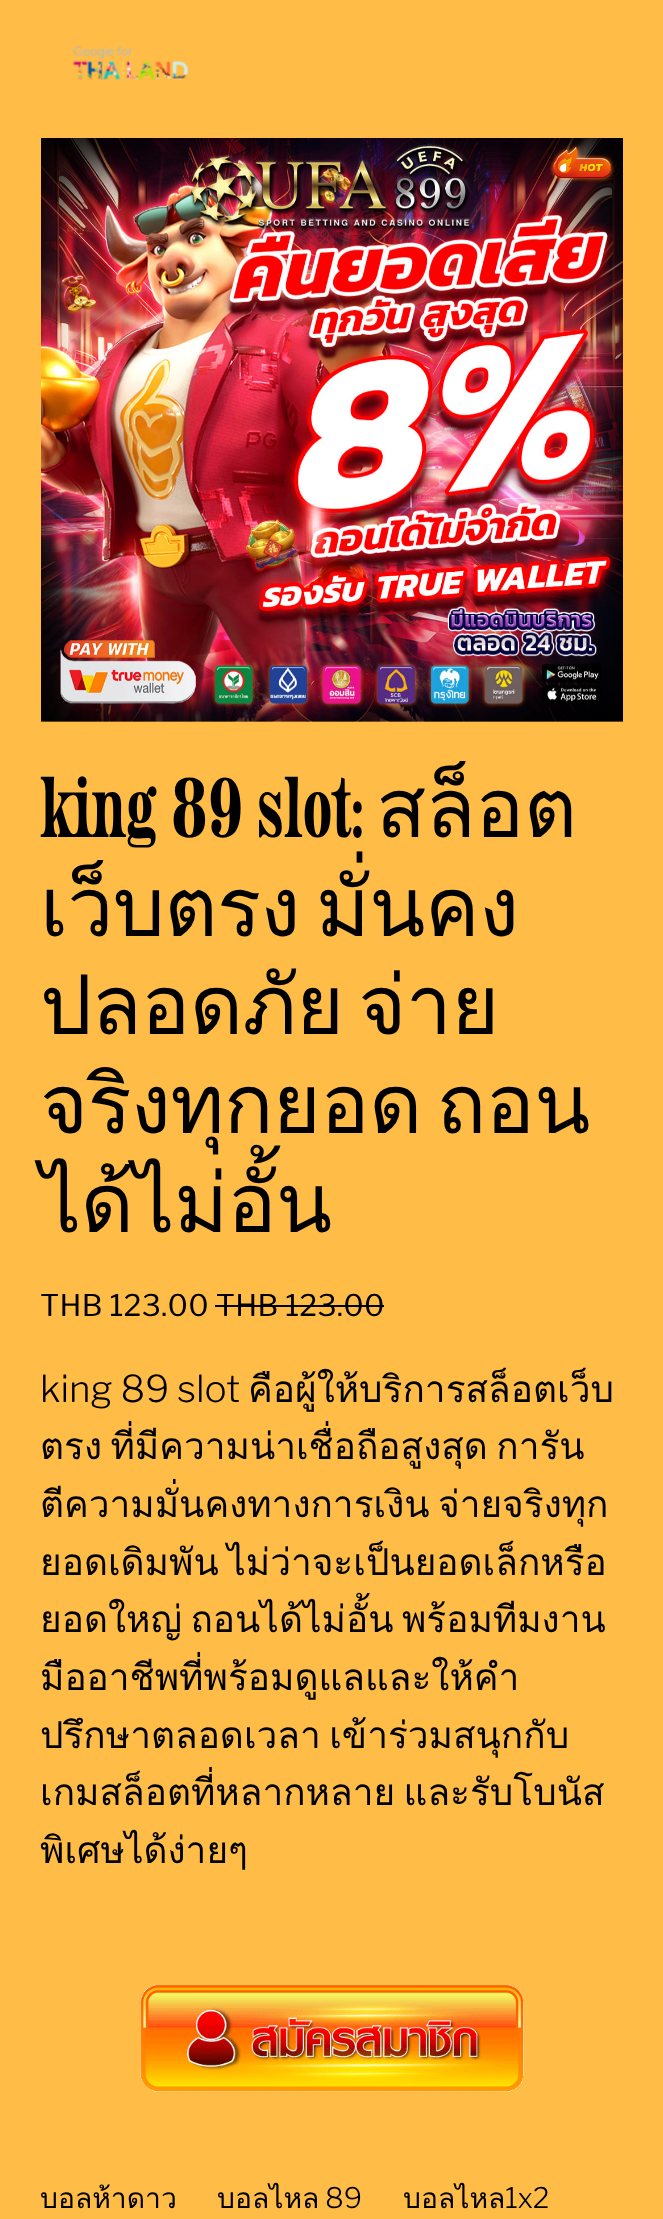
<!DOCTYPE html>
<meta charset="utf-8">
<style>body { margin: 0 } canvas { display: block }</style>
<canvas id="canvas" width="663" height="2219"></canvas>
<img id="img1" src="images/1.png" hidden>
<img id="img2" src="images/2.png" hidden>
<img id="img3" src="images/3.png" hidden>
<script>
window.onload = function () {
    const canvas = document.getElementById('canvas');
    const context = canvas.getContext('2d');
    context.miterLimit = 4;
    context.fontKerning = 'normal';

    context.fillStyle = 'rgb(255, 188, 71)';
    context.fillRect(0, 0, 663, 2219);
    context.drawImage(document.getElementById('img1'), 72, 45, 117, 35);
    context.drawImage(document.getElementById('img2'), 41, 138, 582, 584);
    context.fillStyle = 'rgb(0, 0, 0)';
    context.fillRect(215, 1305, 169, 2);
    context.drawImage(document.getElementById('img3'), 140, 1985, 384, 107);
    context.letterSpacing = '-0.75px';
    context.font = '82.25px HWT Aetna';
    context.fillText('king 89 slot:', 40, 837);
    context.font = '82.25px Loma';
    context.fillText('สล็อต', 376, 837);
    context.wordSpacing = '-11px';
    context.fillText('เว็บตรง มั่นคง', 40, 936);
    context.wordSpacing = '-12px';
    context.fillText('ปลอดภัย จ่าย', 40, 1034);
    context.fillText('จริงทุกยอด ถอน', 40, 1133);
    context.wordSpacing = '0px';
    context.fillText('ได้ไม่อั้น', 40, 1232);
    context.letterSpacing = '0.3px';
    context.font = '29.75px Libre Franklin';
    context.fillText('THB 123.00 THB 123.00', 40, 1316);
    context.letterSpacing = '0px';
    context.font = '300 37px Libre Franklin';
    context.fillText('king 89 slot', 40, 1402);
    context.font = '37px Loma';
    context.fillText('คือผู้ให้บริการสล็อตเว็บ', 248, 1402);
    context.wordSpacing = '-4px';
    context.fillText('ตรง ที่มีความน่าเชื่อถือสูงสุด การัน', 40, 1459);
    context.fillText('ตีความมั่นคงทางการเงิน จ่ายจริงทุก', 40, 1517);
    context.fillText('ยอดเดิมพัน ไม่ว่าจะเป็นยอดเล็กหรือ', 40, 1575);
    context.fillText('ยอดใหญ่ ถอนได้ไม่อั้น พร้อมทีมงาน', 40, 1632);
    context.wordSpacing = '0px';
    context.fillText('มืออาชีพที่พร้อมดูแลและให้คำ', 40, 1690);
    context.wordSpacing = '-4px';
    context.fillText('ปรึกษาตลอดเวลา เข้าร่วมสนุกกับ', 40, 1748);
    context.fillText('เกมสล็อตที่หลากหลาย และรับโบนัส', 40, 1805);
    context.wordSpacing = '0px';
    context.fillText('พิเศษได้ง่ายๆ', 40, 1863);
    context.font = '28.25px Loma';
    context.fillText('บอลห้าดาว', 40, 2208);
    context.fillText('บอลไหล', 217, 2208);
    context.font = '300 28.25px Libre Franklin';
    context.fillText('89', 325, 2208);
    context.font = '28.25px Loma';
    context.fillText('บอลไหล', 403, 2208);
    context.font = '300 28.25px Libre Franklin';
    context.fillText('1x2', 505, 2208);
};
</script>
